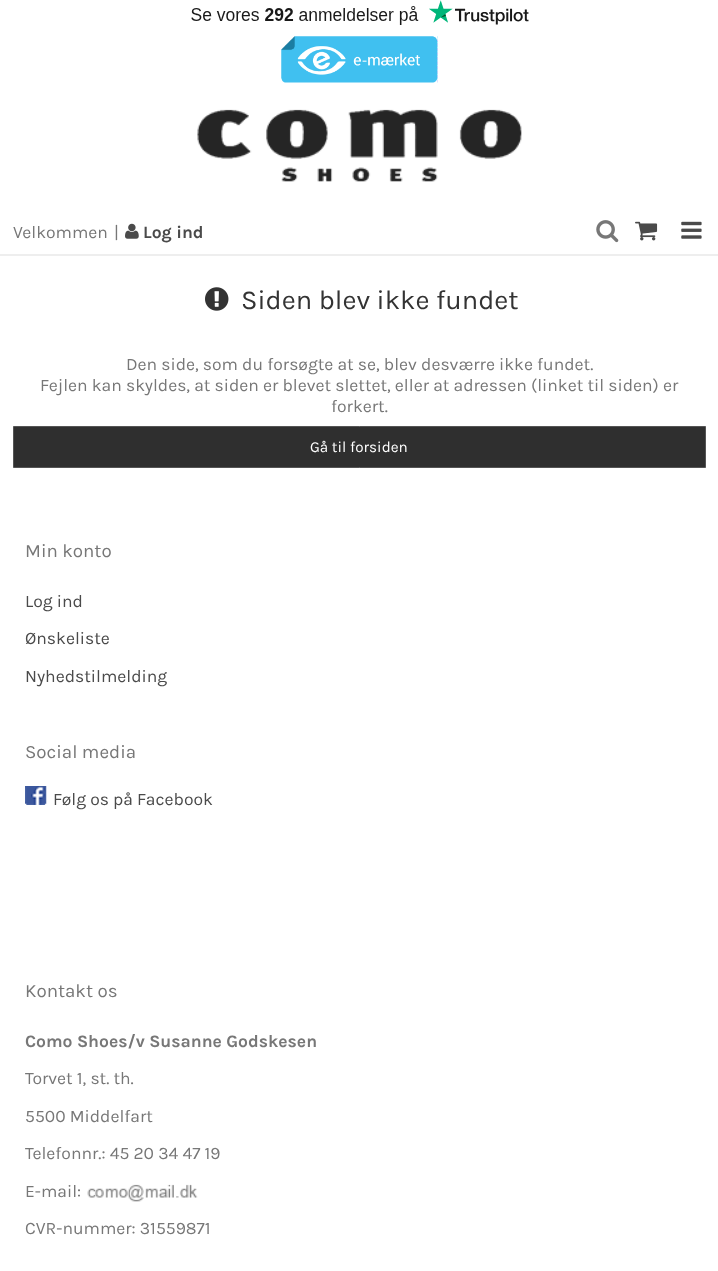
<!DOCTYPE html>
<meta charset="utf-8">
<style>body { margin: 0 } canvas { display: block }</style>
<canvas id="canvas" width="718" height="1271"></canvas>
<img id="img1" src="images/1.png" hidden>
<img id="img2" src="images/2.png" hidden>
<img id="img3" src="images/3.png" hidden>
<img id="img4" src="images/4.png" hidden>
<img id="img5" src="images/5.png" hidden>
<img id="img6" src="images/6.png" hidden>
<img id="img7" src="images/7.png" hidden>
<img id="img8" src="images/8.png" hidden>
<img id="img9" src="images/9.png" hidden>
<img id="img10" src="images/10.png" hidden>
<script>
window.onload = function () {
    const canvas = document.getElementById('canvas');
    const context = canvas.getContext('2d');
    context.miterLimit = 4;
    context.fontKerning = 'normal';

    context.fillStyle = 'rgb(255, 255, 255)';
    context.fillRect(0, 0, 718, 1271);
    context.drawImage(document.getElementById('img1'), 191, 0, 338, 25);
    context.drawImage(document.getElementById('img2'), 281, 36, 157, 47);
    context.drawImage(document.getElementById('img3'), 197, 109, 325, 73);
    context.drawImage(document.getElementById('img4'), 125, 223, 14, 16);
    context.drawImage(document.getElementById('img5'), 596, 220, 23, 23);
    context.drawImage(document.getElementById('img6'), 635, 221, 23, 20);
    context.drawImage(document.getElementById('img7'), 681, 221, 21, 18);
    context.fillStyle = 'rgb(238, 238, 238)';
    context.fillRect(0, 254, 718, 2);
    context.drawImage(document.getElementById('img8'), 205, 287, 24, 24);
    context.fillStyle = 'rgb(47, 47, 47)';
    context.beginPath();
    context.rect(13.5, 426.5, 692, 41);
    context.fill();
    context.strokeStyle = 'rgb(85, 85, 85)';
    context.stroke();
    context.drawImage(document.getElementById('img9'), 25, 786, 22, 19);
    context.drawImage(document.getElementById('img10'), 87, 1184, 111, 18);
    context.font = '17.5px Karla';
    context.fillStyle = 'rgb(119, 119, 119)';
    context.fillText('Velkommen', 13, 238);
    context.fillText('|', 114, 238);
    context.font = 'bold 17.5px Karla';
    context.fillStyle = 'rgb(74, 74, 74)';
    context.fillText('Log ind', 143, 238);
    context.font = '27.25px Karla';
    context.fillStyle = 'rgb(51, 51, 51)';
    context.fillText('Siden blev ikke fundet', 241, 309);
    context.font = '17.5px Karla';
    context.fillStyle = 'rgb(119, 119, 119)';
    context.fillText('Den side, som du forsøgte at se, blev desværre ikke fundet.', 126, 370);
    context.fillText('Fejlen kan skyldes, at siden er blevet slettet, eller at adressen (linket til siden) er', 40, 391);
    context.fillText('forkert.', 331, 412);
    context.font = '15.25px Karla';
    context.fillStyle = 'rgb(255, 255, 255)';
    context.fillText('Gå til forsiden', 310, 452);
    context.font = '18.75px Karla';
    context.fillStyle = 'rgb(119, 119, 119)';
    context.fillText('Min konto', 25, 557);
    context.font = '17.5px Karla';
    context.fillStyle = 'rgb(74, 74, 74)';
    context.fillText('Log ind', 25, 607);
    context.fillText('Ønskeliste', 25, 644);
    context.fillText('Nyhedstilmelding', 25, 682);
    context.font = '18.75px Karla';
    context.fillStyle = 'rgb(119, 119, 119)';
    context.fillText('Social media', 25, 758);
    context.font = '17.5px Karla';
    context.fillStyle = 'rgb(74, 74, 74)';
    context.fillText('Følg os på Facebook', 53, 805);
    context.font = '18.75px Karla';
    context.fillStyle = 'rgb(119, 119, 119)';
    context.fillText('Kontakt os', 25, 997);
    context.font = 'bold 17.5px Karla';
    context.fillText('Como Shoes/v Susanne Godskesen', 25, 1047);
    context.font = '17.5px Karla';
    context.fillText('Torvet 1, st. th.', 25, 1084);
    context.fillText('5500 Middelfart', 25, 1122);
    context.fillText('Telefonnr.: 45 20 34 47 19', 25, 1159);
    context.fillText('E-mail:', 25, 1197);
    context.fillText('CVR-nummer: 31559871', 25, 1234);
};
</script>
